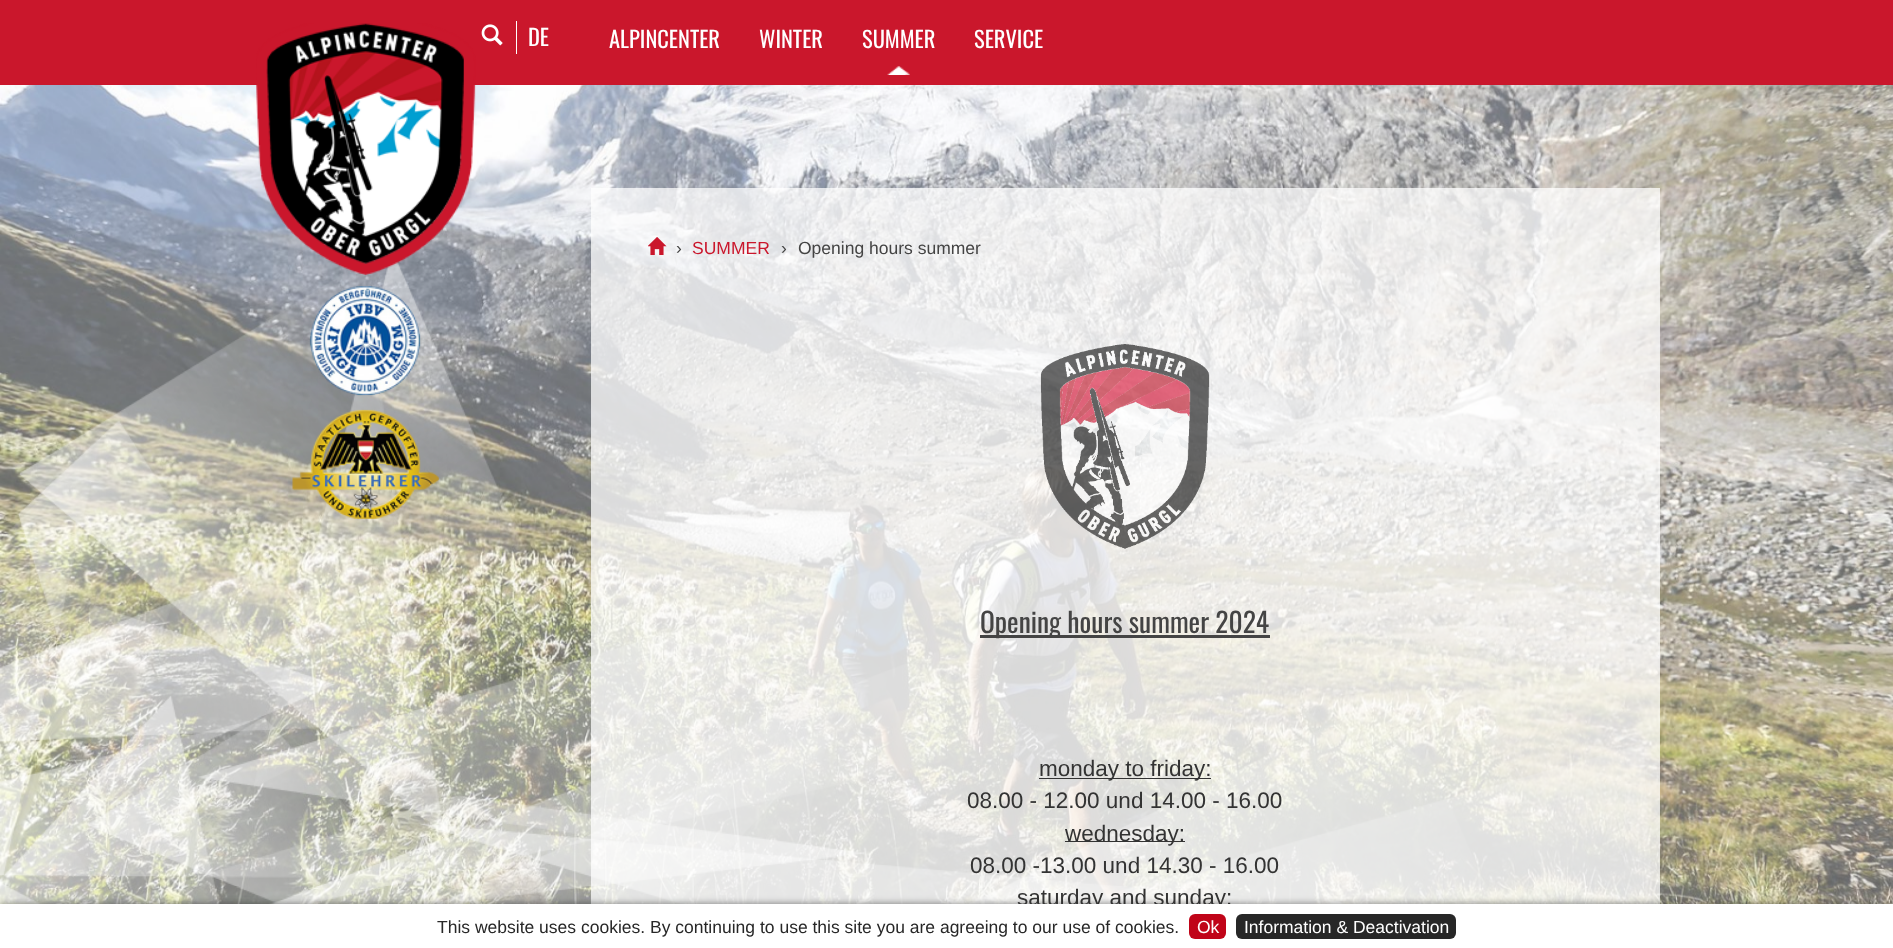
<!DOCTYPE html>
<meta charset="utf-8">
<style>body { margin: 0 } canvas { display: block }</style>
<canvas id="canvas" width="1893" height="948"></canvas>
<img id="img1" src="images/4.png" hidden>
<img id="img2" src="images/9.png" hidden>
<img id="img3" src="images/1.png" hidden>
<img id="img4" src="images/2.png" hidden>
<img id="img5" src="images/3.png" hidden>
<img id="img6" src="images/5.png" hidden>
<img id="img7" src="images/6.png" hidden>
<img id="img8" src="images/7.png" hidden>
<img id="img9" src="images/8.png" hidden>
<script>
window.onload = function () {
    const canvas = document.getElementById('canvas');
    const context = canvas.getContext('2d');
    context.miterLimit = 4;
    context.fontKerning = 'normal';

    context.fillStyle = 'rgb(255, 255, 255)';
    context.fillRect(0, 0, 1893, 948);
    context.fillStyle = 'rgb(202, 23, 44)';
    context.fillRect(0, 0, 1893, 85);
    context.drawImage(document.getElementById('img1'), 0, 85, 1893, 819);
    context.drawImage(document.getElementById('img2'), 0, 261, 1654, 643);
    context.drawImage(document.getElementById('img3'), 256, 23, 220, 252);
    context.drawImage(document.getElementById('img4'), 481, 24, 22, 22);
    context.fillStyle = 'rgb(255, 255, 255)';
    context.fillRect(516, 21, 1, 33);
    context.drawImage(document.getElementById('img5'), 887, 66, 23, 9);
    context.drawImage(document.getElementById('img6'), 309, 286, 112, 110);
    context.drawImage(document.getElementById('img7'), 292, 409, 147, 110);
    context.fillStyle = 'rgba(255, 255, 255, 0.75)';
    context.fillRect(591, 188, 1069, 716);
    context.drawImage(document.getElementById('img8'), 648, 237, 19, 18);
    context.drawImage(document.getElementById('img9'), 1040, 344, 170, 205);
    context.fillStyle = 'rgb(68, 68, 68)';
    context.fillRect(980, 635, 290, 3);
    context.fillStyle = 'rgb(51, 51, 51)';
    context.fillRect(1039, 778, 172, 1);
    context.fillRect(1065, 841, 120, 1);
    context.fillStyle = 'rgba(50, 50, 50, 0.5)';
    context.filter = 'blur(3px)';
    context.beginPath();
    context.rect(0, 903, 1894, 45);
    context.fill();
    context.filter = 'none';
    context.font = '22.5px Oswald';
    context.fillStyle = 'rgb(255, 255, 255)';
    context.fillText('DE', 528, 46);
    context.fillText('ALPINCENTER', 609, 48);
    context.fillText('WINTER', 759, 48);
    context.fillText('SUMMER', 862, 48);
    context.fillText('SERVICE', 974, 48);
    context.font = '17.5px Liberation Sans';
    context.fillStyle = 'rgb(68, 68, 68)';
    context.fillText('›', 676, 254);
    context.fillStyle = 'rgb(202, 23, 44)';
    context.fillText('SUMMER', 692, 254);
    context.fillStyle = 'rgb(68, 68, 68)';
    context.fillText('›', 781, 254);
    context.fillText('Opening hours summer', 798, 254);
    context.font = '27.5px Oswald';
    context.fillText('Opening hours summer 2024', 980, 633);
    context.font = '22.5px Liberation Sans';
    context.fillStyle = 'rgb(51, 51, 51)';
    context.fillText('monday to friday:', 1039, 776);
    context.fillText('08.00 - 12.00 und 14.00 - 16.00', 967, 808);
    context.fillText('wednesday:', 1065, 841);
    context.fillText('08.00 -13.00 und 14.30 - 16.00', 970, 873);
    context.fillText('saturday and sunday:', 1017, 905);
    context.fillStyle = 'rgb(255, 255, 255)';
    context.fillRect(0, 904, 1893, 44);
    context.font = '17.5px Liberation Sans';
    context.fillStyle = 'rgb(39, 39, 39)';
    context.fillText('This website uses cookies. By continuing to use this site you are agreeing to our use of cookies.', 437, 933);
    context.fillStyle = 'rgb(192, 4, 24)';
    context.beginPath();
    context.roundRect(1189, 914, 37, 25, 6);
    context.fill();
    context.fillStyle = 'rgb(255, 255, 255)';
    context.fillText('Ok', 1197, 933);
    context.fillStyle = 'rgb(39, 39, 39)';
    context.beginPath();
    context.roundRect(1236, 914, 220, 25, 6);
    context.fill();
    context.fillStyle = 'rgb(255, 255, 255)';
    context.fillText('Information & Deactivation', 1244, 933);
};
</script>
